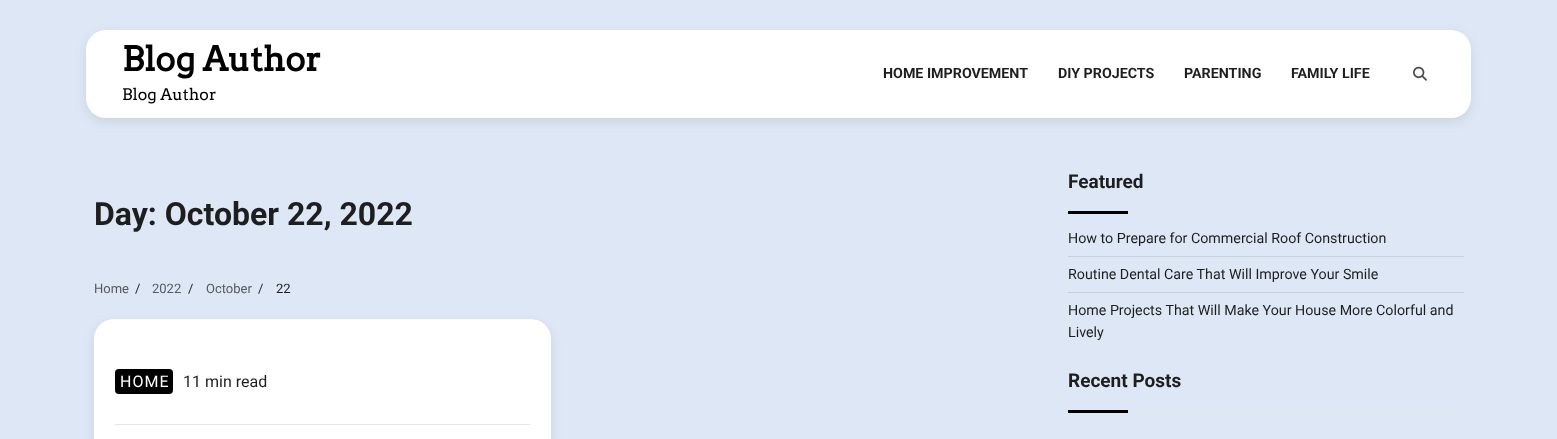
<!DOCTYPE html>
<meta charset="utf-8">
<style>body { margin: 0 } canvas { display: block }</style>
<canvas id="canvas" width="1557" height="439"></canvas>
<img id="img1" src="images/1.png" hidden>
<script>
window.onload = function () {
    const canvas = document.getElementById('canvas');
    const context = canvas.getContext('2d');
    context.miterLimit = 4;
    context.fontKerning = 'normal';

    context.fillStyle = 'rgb(221, 231, 245)';
    context.fillRect(0, 0, 1557, 439);
    context.fillStyle = 'rgba(0, 0, 0, 0.08)';
    context.filter = 'blur(6px)';
    context.beginPath();
    context.roundRect(86, 34, 1385, 88, 20);
    context.fill();
    context.filter = 'none';
    context.fillStyle = 'rgb(255, 255, 255)';
    context.beginPath();
    context.roundRect(86, 30, 1385, 88, 20);
    context.fill();
    context.drawImage(document.getElementById('img1'), 1413, 66, 14, 15);
    context.fillStyle = 'rgba(0, 0, 0, 0.08)';
    context.filter = 'blur(6px)';
    context.beginPath();
    context.roundRect(94, 323, 457, 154, 20);
    context.fill();
    context.filter = 'none';
    context.fillStyle = 'rgb(255, 255, 255)';
    context.beginPath();
    context.roundRect(94, 319, 457, 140, 20);
    context.fill();
    context.fillStyle = 'rgb(229, 229, 229)';
    context.fillRect(115, 424, 415, 1);
    context.fillStyle = 'rgb(0, 0, 0)';
    context.beginPath();
    context.roundRect(115, 369, 58, 25, 4);
    context.fill();
    context.fillStyle = 'rgb(229, 229, 229)';
    context.fillRect(1128, 212, 336, 1);
    context.fillStyle = 'rgb(0, 0, 0)';
    context.fillRect(1068, 211, 60, 3);
    context.fillStyle = 'rgb(199, 208, 221)';
    context.fillRect(1068, 256, 396, 1);
    context.fillRect(1068, 292, 396, 1);
    context.fillStyle = 'rgb(229, 229, 229)';
    context.fillRect(1128, 411, 336, 1);
    context.fillStyle = 'rgb(0, 0, 0)';
    context.fillRect(1068, 410, 60, 3);
    context.font = 'bold 33.75px Arvo';
    context.fillText('Blog Author', 122, 71);
    context.font = '16px Arvo';
    context.fillText('Blog Author', 122, 100);
    context.font = 'bold 14.25px Roboto';
    context.fillStyle = 'rgb(30, 30, 30)';
    context.fillText('HOME IMPROVEMENT', 883, 78);
    context.fillText('DIY PROJECTS', 1058, 78);
    context.fillText('PARENTING', 1184, 78);
    context.fillText('FAMILY LIFE', 1291, 78);
    context.font = 'bold 32px Roboto';
    context.fillText('Day: October 22, 2022', 94, 225);
    context.font = '13px Roboto';
    context.fillStyle = 'rgb(87, 90, 95)';
    context.fillText('Home', 94, 293);
    context.fillStyle = 'rgb(30, 30, 30)';
    context.fillText('/', 135, 293);
    context.fillStyle = 'rgb(87, 90, 95)';
    context.fillText('2022', 152, 293);
    context.fillStyle = 'rgb(30, 30, 30)';
    context.fillText('/', 188, 293);
    context.fillStyle = 'rgb(87, 90, 95)';
    context.fillText('October', 206, 293);
    context.fillStyle = 'rgb(30, 30, 30)';
    context.fillText('/', 258, 293);
    context.fillText('22', 276, 293);
    context.letterSpacing = '1px';
    context.font = '16px Roboto';
    context.fillStyle = 'rgb(255, 255, 255)';
    context.fillText('HOME', 120, 387);
    context.letterSpacing = '0px';
    context.fillStyle = 'rgb(30, 30, 30)';
    context.fillText('11 min read', 183, 387);
    context.font = 'bold 19px Roboto';
    context.fillText('Featured', 1068, 188);
    context.font = '14.25px Roboto';
    context.fillText('How to Prepare for Commercial Roof Construction', 1068, 243);
    context.fillText('Routine Dental Care That Will Improve Your Smile', 1068, 279);
    context.fillText('Home Projects That Will Make Your House More Colorful and', 1068, 315);
    context.fillText('Lively', 1068, 337);
    context.font = 'bold 19px Roboto';
    context.fillText('Recent Posts', 1068, 387);
};
</script>
